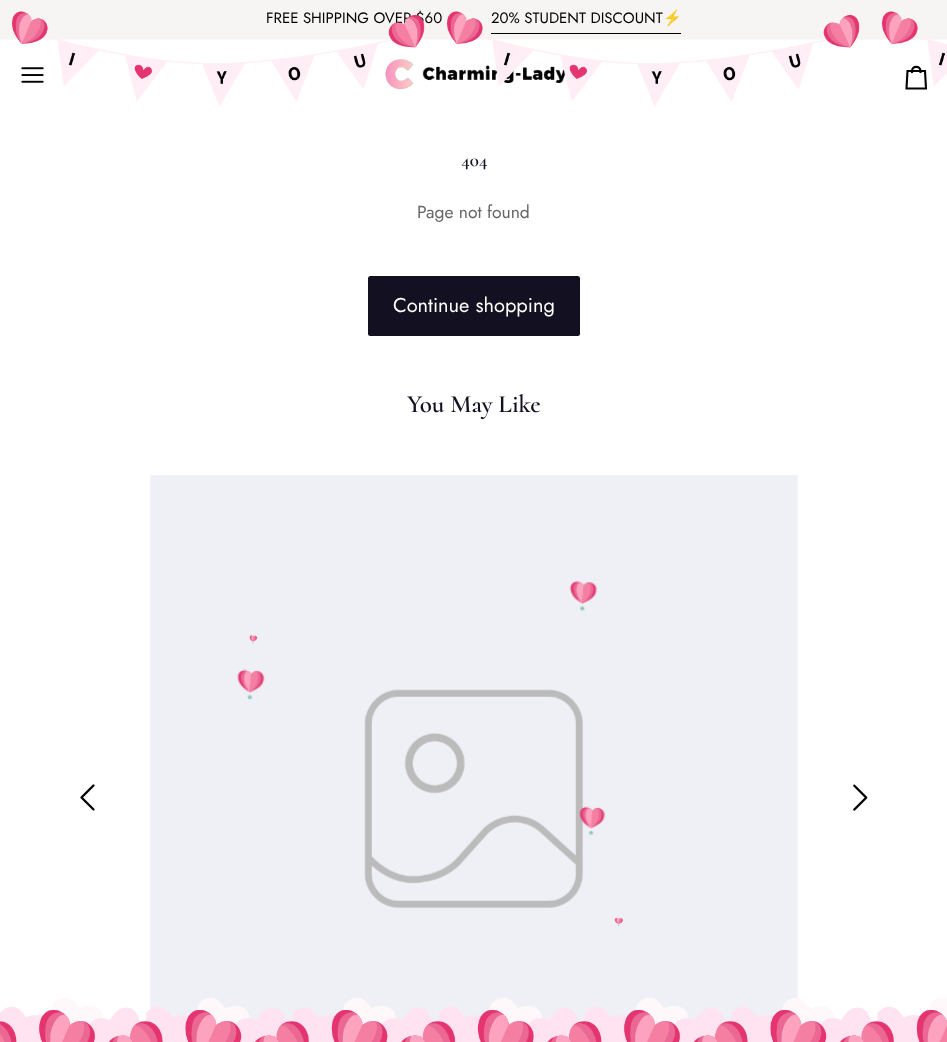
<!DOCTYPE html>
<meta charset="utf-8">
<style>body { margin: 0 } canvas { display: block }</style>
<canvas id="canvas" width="947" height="1042"></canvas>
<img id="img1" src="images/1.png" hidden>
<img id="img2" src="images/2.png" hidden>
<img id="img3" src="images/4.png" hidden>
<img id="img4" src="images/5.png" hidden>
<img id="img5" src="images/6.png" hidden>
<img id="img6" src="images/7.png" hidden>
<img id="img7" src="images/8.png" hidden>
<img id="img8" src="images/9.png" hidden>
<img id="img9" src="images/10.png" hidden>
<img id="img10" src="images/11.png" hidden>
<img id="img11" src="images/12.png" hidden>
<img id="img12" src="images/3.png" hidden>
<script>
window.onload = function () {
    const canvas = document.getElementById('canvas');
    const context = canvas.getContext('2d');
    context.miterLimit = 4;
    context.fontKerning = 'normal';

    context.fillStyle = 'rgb(255, 255, 255)';
    context.fillRect(0, 0, 947, 1042);
    context.fillStyle = 'rgb(247, 245, 244)';
    context.fillRect(0, 0, 947, 39);
    context.fillStyle = 'rgb(250, 249, 248)';
    context.fillRect(0, 39, 947, 1);
    context.fillStyle = 'rgb(0, 0, 0)';
    context.fillRect(491, 33, 190, 1);
    context.drawImage(document.getElementById('img1'), 21, 67, 23, 16);
    context.drawImage(document.getElementById('img2'), 385, 59, 181, 31);
    context.beginPath();
    context.moveTo(920.5, 73);
    context.lineTo(920.5, 71);
    context.lineTo(925, 71);
    context.lineTo(926, 88.5);
    context.lineTo(906.5, 88.5);
    context.lineTo(907.5, 71);
    context.lineTo(912, 71);
    context.bezierCurveTo(912, 65.5, 920.5, 65.5, 920.5, 71);
    context.lineTo(912, 71);
    context.lineTo(912, 73);
    context.strokeStyle = 'rgb(0, 0, 0)';
    context.lineWidth = 2.1;
    context.stroke();
    context.fillStyle = 'rgb(18, 16, 33)';
    context.beginPath();
    context.roundRect(368, 276, 212, 60, 2.5);
    context.fill();
    context.drawImage(document.getElementById('img3'), 80, 784, 15, 27);
    context.drawImage(document.getElementById('img4'), 150, 475, 648, 566);
    context.drawImage(document.getElementById('img5'), 853, 784, 15, 27);
    context.drawImage(document.getElementById('img6'), 569, 580, 29, 32);
    context.drawImage(document.getElementById('img7'), 249, 635, 9, 9);
    context.drawImage(document.getElementById('img8'), 237, 669, 28, 31);
    context.drawImage(document.getElementById('img9'), 579, 806, 27, 30);
    context.drawImage(document.getElementById('img10'), 614, 917, 9, 9);
    context.drawImage(document.getElementById('img11'), 0, 997, 947, 45);
    context.font = '15px Jost';
    context.fillStyle = 'rgb(0, 0, 0)';
    context.fillText('FREE SHIPPING OVER $60', 266, 23);
    context.fillText('20% STUDENT DISCOUNT', 491, 23);
    context.font = '15px Noto Color Emoji';
    context.fillText('⚡', 663, 23);
    context.drawImage(document.getElementById('img12'), 12, 11, 935, 96);
    context.font = '600 19px Cormorant';
    context.fillStyle = 'rgb(18, 16, 33)';
    context.fillText('404', 461, 166);
    context.font = '17.5px Jost';
    context.fillStyle = 'rgb(102, 102, 102)';
    context.fillText('Page not found', 417, 218);
    context.font = '20px Jost';
    context.fillStyle = 'rgb(255, 255, 255)';
    context.fillText('Continue shopping', 393, 312);
    context.font = '600 25px Cormorant';
    context.fillStyle = 'rgb(18, 16, 33)';
    context.fillText('You May Like', 407, 412);
};
</script>
